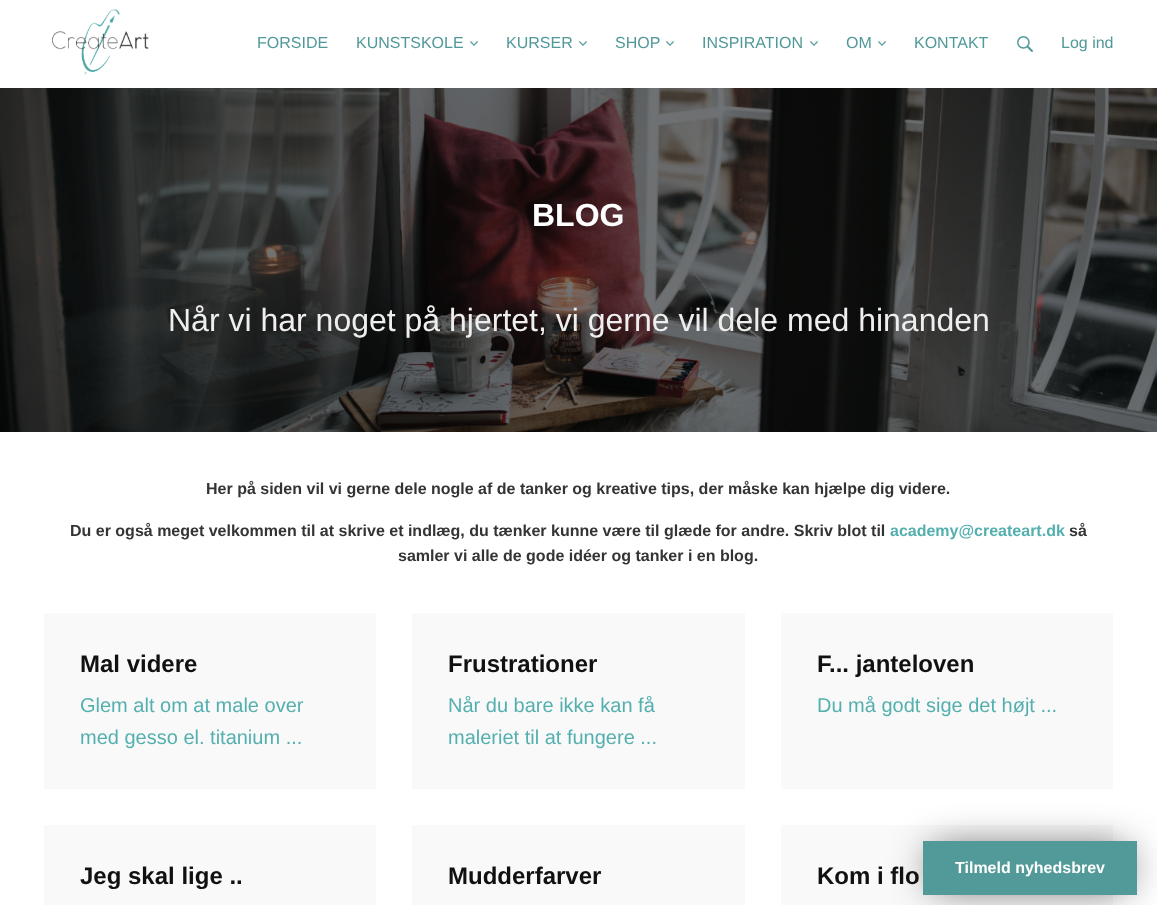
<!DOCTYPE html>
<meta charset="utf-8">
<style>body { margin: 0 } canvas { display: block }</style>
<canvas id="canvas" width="1157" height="905"></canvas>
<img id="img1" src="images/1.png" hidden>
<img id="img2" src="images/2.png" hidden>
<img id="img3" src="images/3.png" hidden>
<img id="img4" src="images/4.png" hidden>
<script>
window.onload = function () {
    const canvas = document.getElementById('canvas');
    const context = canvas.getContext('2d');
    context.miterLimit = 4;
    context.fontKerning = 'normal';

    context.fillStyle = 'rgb(255, 255, 255)';
    context.fillRect(0, 0, 1157, 905);
    context.drawImage(document.getElementById('img1'), 52, 9, 97, 66);
    context.drawImage(document.getElementById('img2'), 470, 41, 8, 5);
    context.drawImage(document.getElementById('img2'), 579, 41, 8, 5);
    context.drawImage(document.getElementById('img2'), 666, 41, 8, 5);
    context.drawImage(document.getElementById('img2'), 810, 41, 8, 5);
    context.drawImage(document.getElementById('img2'), 878, 41, 8, 5);
    context.drawImage(document.getElementById('img3'), 1017, 36, 16, 16);
    context.drawImage(document.getElementById('img4'), 0, 88, 1157, 344);
    context.fillStyle = 'rgb(249, 249, 249)';
    context.fillRect(44, 613, 332, 176);
    context.fillRect(412, 613, 333, 176);
    context.fillRect(781, 613, 332, 176);
    context.fillRect(44, 825, 332, 80);
    context.fillRect(412, 825, 333, 80);
    context.fillRect(781, 825, 332, 80);
    context.fillStyle = 'rgba(0, 0, 0, 0.75)';
    context.filter = 'blur(20px)';
    context.beginPath();
    context.rect(933, 851, 194, 34);
    context.fill();
    context.filter = 'none';
    context.fillStyle = 'rgb(82, 153, 153)';
    context.fillRect(923, 841, 214, 54);
    context.font = '16px Liberation Sans';
    context.fillStyle = 'rgb(81, 153, 153)';
    context.fillText('FORSIDE', 257, 48);
    context.fillText('KUNSTSKOLE', 356, 48);
    context.fillText('KURSER', 506, 48);
    context.fillText('SHOP', 615, 48);
    context.fillText('INSPIRATION', 702, 48);
    context.fillText('OM', 846, 48);
    context.fillText('KONTAKT', 914, 48);
    context.fillText('Log ind', 1061, 48);
    context.font = 'bold 32px Liberation Sans';
    context.fillStyle = 'rgb(255, 255, 255)';
    context.fillText('BLOG', 532, 226);
    context.font = '32px Liberation Sans';
    context.fillStyle = 'rgb(238, 238, 238)';
    context.fillText('Når vi har noget på hjertet, vi gerne vil dele med hinanden', 168, 331);
    context.font = 'bold 16px Liberation Sans';
    context.fillStyle = 'rgb(52, 52, 52)';
    context.fillText('Her på siden vil vi gerne dele nogle af de tanker og kreative tips, der måske kan hjælpe dig videre.', 206, 494);
    context.fillText('Du er også meget velkommen til at skrive et indlæg, du tænker kunne være til glæde for andre. Skriv blot til', 70, 536);
    context.fillStyle = 'rgb(84, 175, 175)';
    context.fillText('academy@createart.dk', 890, 536);
    context.fillStyle = 'rgb(52, 52, 52)';
    context.fillText('så', 1069, 536);
    context.fillText('samler vi alle de gode idéer og tanker i en blog.', 398, 561);
    context.font = 'bold 24px Liberation Sans';
    context.fillStyle = 'rgb(17, 17, 17)';
    context.fillText('Mal videre', 80, 672);
    context.font = '20px Liberation Sans';
    context.fillStyle = 'rgb(84, 175, 175)';
    context.fillText('Glem alt om at male over', 80, 712);
    context.fillText('med gesso el. titanium ...', 80, 744);
    context.font = 'bold 24px Liberation Sans';
    context.fillStyle = 'rgb(17, 17, 17)';
    context.fillText('Frustrationer', 448, 672);
    context.font = '20px Liberation Sans';
    context.fillStyle = 'rgb(84, 175, 175)';
    context.fillText('Når du bare ikke kan få', 448, 712);
    context.fillText('maleriet til at fungere ...', 448, 744);
    context.font = 'bold 24px Liberation Sans';
    context.fillStyle = 'rgb(17, 17, 17)';
    context.fillText('F... janteloven', 817, 672);
    context.font = '20px Liberation Sans';
    context.fillStyle = 'rgb(84, 175, 175)';
    context.fillText('Du må godt sige det højt ...', 817, 712);
    context.font = 'bold 24px Liberation Sans';
    context.fillStyle = 'rgb(17, 17, 17)';
    context.fillText('Jeg skal lige ..', 80, 884);
    context.fillText('Mudderfarver', 448, 884);
    context.fillText('Kom i flo', 817, 884);
    context.font = 'bold 16px Liberation Sans';
    context.fillStyle = 'rgb(255, 255, 255)';
    context.fillText('Tilmeld nyhedsbrev', 955, 873);
};
</script>
